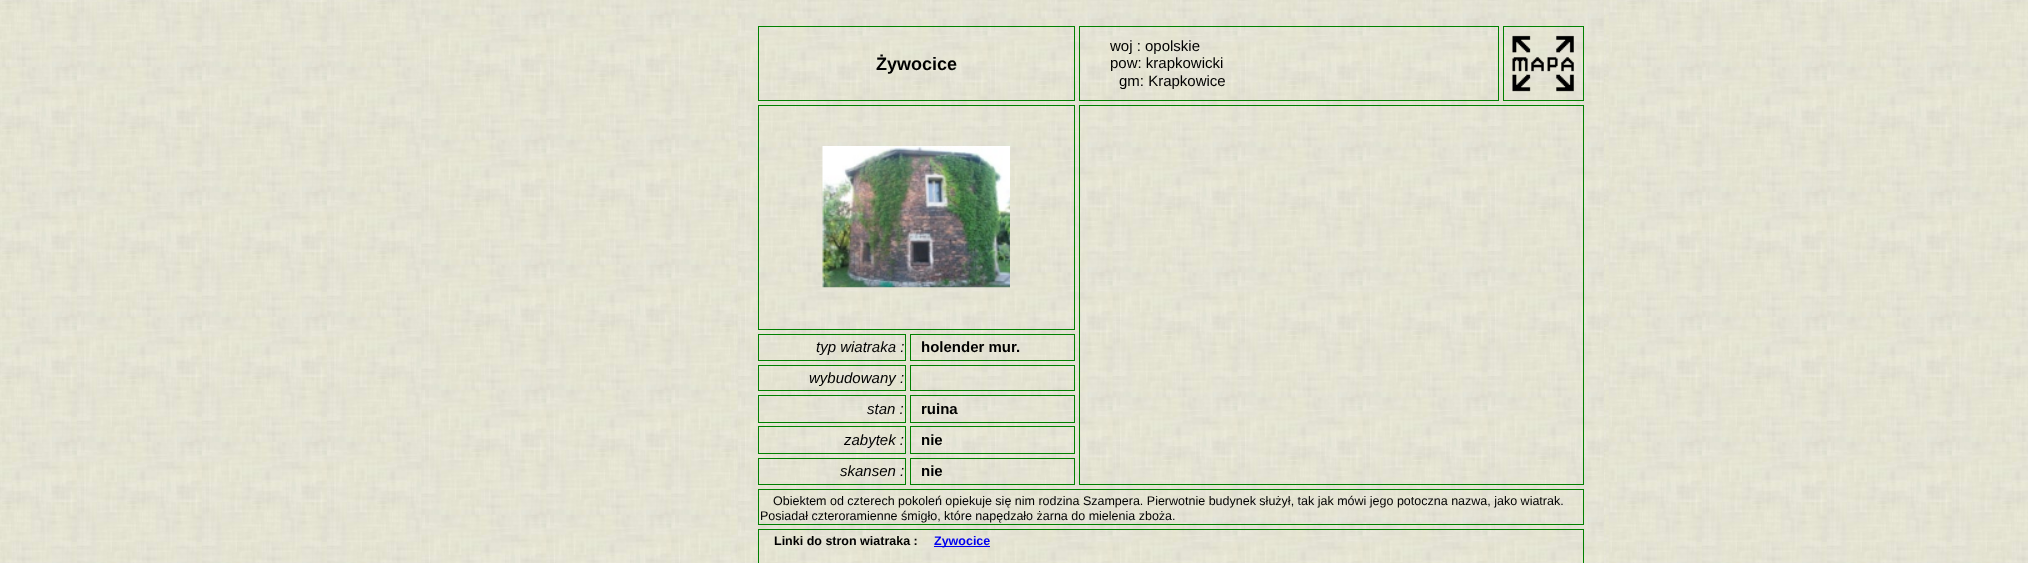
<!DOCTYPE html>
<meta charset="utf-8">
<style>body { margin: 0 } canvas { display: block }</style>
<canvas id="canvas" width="2028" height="563"></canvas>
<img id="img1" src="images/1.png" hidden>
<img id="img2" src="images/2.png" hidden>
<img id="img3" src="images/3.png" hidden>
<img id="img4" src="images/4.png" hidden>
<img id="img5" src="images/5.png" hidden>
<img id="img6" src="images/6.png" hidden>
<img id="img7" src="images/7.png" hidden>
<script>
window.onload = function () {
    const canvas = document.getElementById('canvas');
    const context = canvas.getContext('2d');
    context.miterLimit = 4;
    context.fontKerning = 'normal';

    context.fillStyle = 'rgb(255, 255, 255)';
    context.fillRect(0, 0, 2028, 563);
    context.drawImage(document.getElementById('img1'), 0, 0, 2028, 563);
    context.drawImage(document.getElementById('img2'), 421, 0, 1188, 563);
    context.drawImage(document.getElementById('img3'), 1603, 0, 1, 563);
    context.drawImage(document.getElementById('img4'), 737, 0, 867, 563);
    context.drawImage(document.getElementById('img5'), 738, 22, 866, 541);
    context.strokeStyle = 'rgb(0, 128, 0)';
    context.strokeRect(758.5, 26.5, 316, 74);
    context.strokeRect(1079.5, 26.5, 419, 74);
    context.strokeRect(1503.5, 26.5, 80, 74);
    context.drawImage(document.getElementById('img6'), 1512, 35, 62, 57);
    context.strokeRect(758.5, 105.5, 316, 224);
    context.drawImage(document.getElementById('img7'), 822, 146, 188, 142);
    context.strokeRect(1079.5, 105.5, 504, 379);
    context.strokeRect(758.5, 334.5, 147, 26);
    context.strokeRect(910.5, 334.5, 164, 26);
    context.strokeRect(758.5, 365.5, 147, 25);
    context.strokeRect(910.5, 365.5, 164, 25);
    context.strokeRect(758.5, 395.5, 147, 27);
    context.strokeRect(910.5, 395.5, 164, 27);
    context.strokeRect(758.5, 426.5, 147, 27);
    context.strokeRect(910.5, 426.5, 164, 27);
    context.strokeRect(758.5, 458.5, 147, 26);
    context.strokeRect(910.5, 458.5, 164, 26);
    context.strokeRect(758.5, 489.5, 825, 35);
    context.strokeRect(758.5, 529.5, 825, 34);
    context.fillStyle = 'rgb(0, 0, 238)';
    context.fillRect(934, 546, 56, 1);
    context.font = 'bold 18px Liberation Sans';
    context.fillStyle = 'rgb(0, 0, 0)';
    context.fillText('Żywocice', 876, 70);
    context.font = '15px Liberation Sans';
    context.fillText('woj : opolskie', 1110, 51);
    context.fillText('pow: krapkowicki', 1110, 68);
    context.fillText('gm: Krapkowice', 1119, 86);
    context.font = 'italic 15px Liberation Sans';
    context.fillText('typ wiatraka :', 816, 352);
    context.font = 'bold 15px Liberation Sans';
    context.fillText('holender mur.', 921, 352);
    context.font = 'italic 15px Liberation Sans';
    context.fillText('wybudowany :', 809, 383);
    context.fillText('stan :', 867, 414);
    context.font = 'bold 15px Liberation Sans';
    context.fillText('ruina', 921, 414);
    context.font = 'italic 15px Liberation Sans';
    context.fillText('zabytek :', 844, 445);
    context.font = 'bold 15px Liberation Sans';
    context.fillText('nie', 921, 445);
    context.font = 'italic 15px Liberation Sans';
    context.fillText('skansen :', 840, 476);
    context.font = 'bold 15px Liberation Sans';
    context.fillText('nie', 921, 476);
    context.font = '12.5px Liberation Sans';
    context.fillText('Obiektem od czterech pokoleń opiekuje się nim rodzina Szampera. Pierwotnie budynek służył, tak jak mówi jego potoczna nazwa, jako wiatrak.', 773, 505);
    context.fillText('Posiadał czteroramienne śmigło, które napędzało żarna do mielenia zboża.', 760, 520);
    context.font = 'bold 12.5px Liberation Sans';
    context.fillText('Linki do stron wiatraka :', 774, 545);
    context.fillStyle = 'rgb(0, 0, 238)';
    context.fillText('Zywocice', 934, 545);
};
</script>
